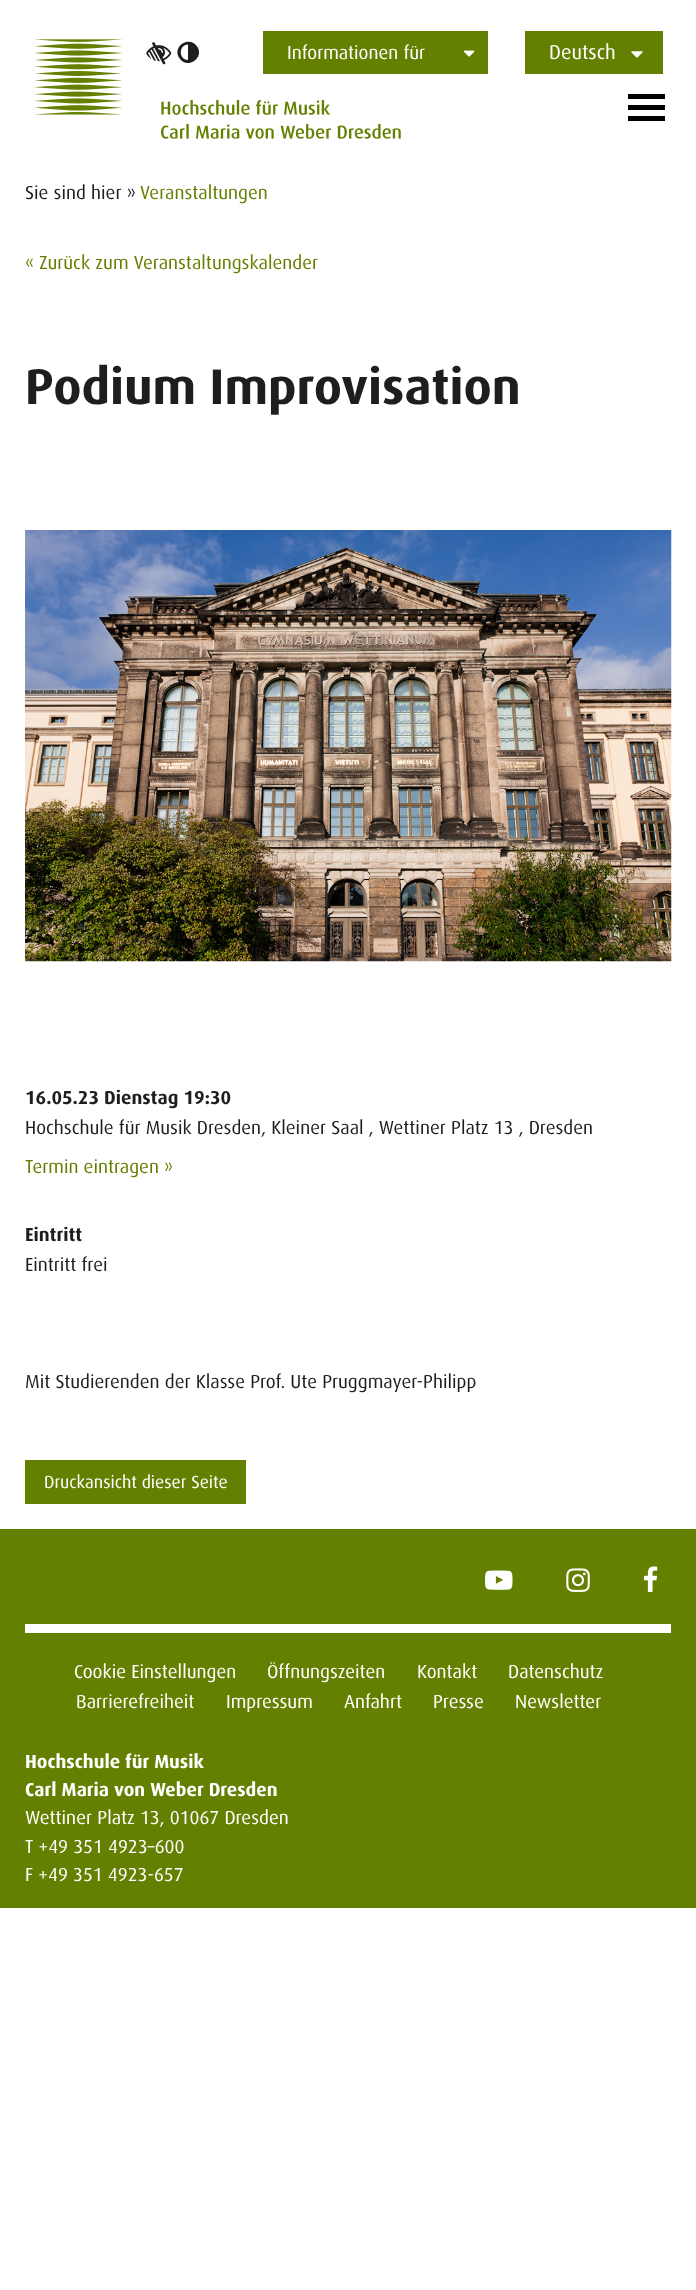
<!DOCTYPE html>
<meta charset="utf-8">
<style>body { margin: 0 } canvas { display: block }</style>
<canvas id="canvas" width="696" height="2290"></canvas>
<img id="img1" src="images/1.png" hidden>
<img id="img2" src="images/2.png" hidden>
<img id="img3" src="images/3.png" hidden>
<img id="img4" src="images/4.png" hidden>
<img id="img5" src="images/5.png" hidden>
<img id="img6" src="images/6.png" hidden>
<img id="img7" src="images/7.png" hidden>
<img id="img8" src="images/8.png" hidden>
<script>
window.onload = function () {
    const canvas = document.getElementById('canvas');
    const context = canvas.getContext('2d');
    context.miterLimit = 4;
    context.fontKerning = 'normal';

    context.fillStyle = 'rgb(255, 255, 255)';
    context.fillRect(0, 0, 696, 2290);
    context.drawImage(document.getElementById('img1'), 35, 39, 366, 100);
    context.drawImage(document.getElementById('img2'), 146, 42, 26, 23);
    context.fillStyle = 'rgb(30, 30, 30)';
    context.beginPath();
    context.moveTo(188, 60);
    context.lineTo(188, 44.5);
    context.bezierCurveTo(178.5, 44.5, 178.5, 60, 188, 60);
    context.closePath();
    context.moveTo(197.5, 47);
    context.bezierCurveTo(204.5, 59, 186, 70, 179, 57.5);
    context.bezierCurveTo(172, 45.5, 190.5, 35, 197.5, 47);
    context.closePath();
    context.fill();
    context.fillStyle = 'rgb(100, 128, 1)';
    context.fillRect(263, 31, 225, 43);
    context.drawImage(document.getElementById('img3'), 463, 50, 12, 7);
    context.fillRect(525, 31, 138, 43);
    context.drawImage(document.getElementById('img4'), 631, 51, 12, 7);
    context.fillStyle = 'rgb(0, 0, 0)';
    context.fillRect(628, 94, 37, 5);
    context.fillRect(628, 105, 37, 5);
    context.fillRect(628, 116, 37, 5);
    context.drawImage(document.getElementById('img5'), 25, 530, 647, 432);
    context.fillStyle = 'rgb(100, 128, 1)';
    context.fillRect(25, 1460, 221, 44);
    context.fillRect(0, 1529, 696, 379);
    context.fillStyle = 'rgb(255, 255, 255)';
    context.fillRect(25, 1624, 646, 9);
    context.drawImage(document.getElementById('img6'), 485, 1570, 28, 20);
    context.drawImage(document.getElementById('img7'), 566, 1568, 24, 24);
    context.drawImage(document.getElementById('img8'), 643, 1566, 15, 26);
    context.font = '18.75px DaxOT';
    context.fillText('Informationen für', 287, 59);
    context.font = '20px DaxOT';
    context.fillText('Deutsch', 549, 59);
    context.font = '18.75px DaxOT';
    context.fillStyle = 'rgb(30, 30, 30)';
    context.fillText('Sie sind hier »', 25, 199);
    context.fillStyle = 'rgb(100, 128, 1)';
    context.fillText('Veranstaltungen', 140, 199);
    context.fillText('« Zurück zum Veranstaltungskalender', 25, 269);
    context.font = 'bold 50px DaxOT';
    context.fillStyle = 'rgb(30, 30, 30)';
    context.fillText('Podium Improvisation', 25, 404);
    context.font = 'bold 18.75px DaxOT';
    context.fillText('16.05.23 Dienstag 19:30', 25, 1104);
    context.font = '18.75px DaxOT';
    context.fillText('Hochschule für Musik Dresden, Kleiner Saal , Wettiner Platz 13 , Dresden', 25, 1134);
    context.fillStyle = 'rgb(100, 128, 1)';
    context.fillText('Termin eintragen »', 25, 1173);
    context.font = 'bold 18.75px DaxOT';
    context.fillStyle = 'rgb(30, 30, 30)';
    context.fillText('Eintritt', 25, 1241);
    context.font = '18.75px DaxOT';
    context.fillText('Eintritt frei', 25, 1271);
    context.fillText('Mit Studierenden der Klasse Prof. Ute Pruggmayer-Philipp', 25, 1388);
    context.font = '17.5px DaxOT';
    context.fillStyle = 'rgb(255, 255, 255)';
    context.fillText('Druckansicht dieser Seite', 44, 1488);
    context.font = '18.75px DaxOT';
    context.fillText('Cookie Einstellungen', 74, 1678);
    context.fillText('Öffnungszeiten', 267, 1678);
    context.fillText('Kontakt', 417, 1678);
    context.fillText('Datenschutz', 508, 1678);
    context.fillText('Barrierefreiheit', 76, 1708);
    context.fillText('Impressum', 226, 1708);
    context.fillText('Anfahrt', 344, 1708);
    context.fillText('Presse', 433, 1708);
    context.fillText('Newsletter', 515, 1708);
    context.font = 'bold 18.75px DaxOT';
    context.fillText('Hochschule für Musik', 25, 1768);
    context.fillText('Carl Maria von Weber Dresden', 25, 1796);
    context.font = '18.75px DaxOT';
    context.fillText('Wettiner Platz 13, 01067 Dresden', 25, 1824);
    context.fillText('T +49 351 4923–600', 25, 1853);
    context.fillText('F +49 351 4923-657', 25, 1881);
};
</script>
